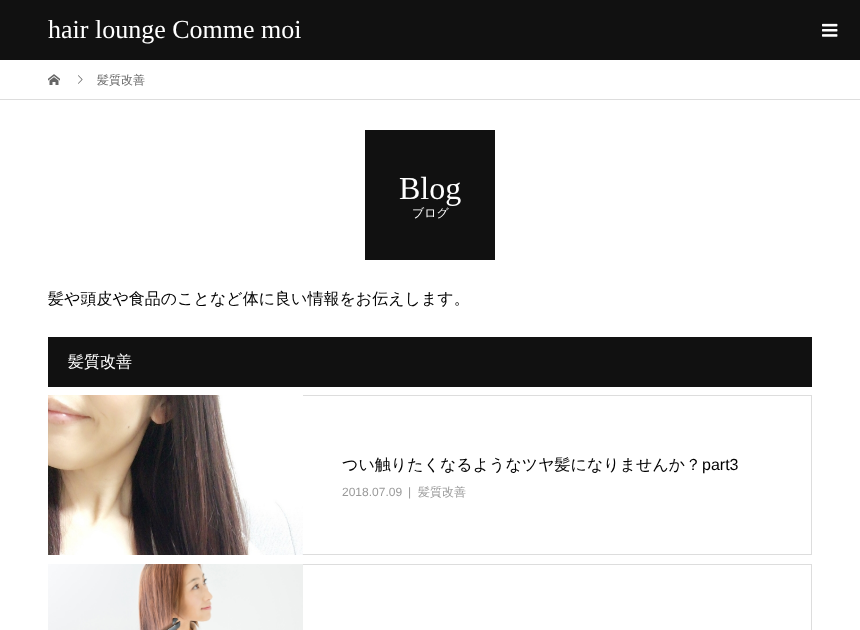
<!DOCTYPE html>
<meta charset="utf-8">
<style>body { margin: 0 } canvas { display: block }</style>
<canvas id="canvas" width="860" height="630"></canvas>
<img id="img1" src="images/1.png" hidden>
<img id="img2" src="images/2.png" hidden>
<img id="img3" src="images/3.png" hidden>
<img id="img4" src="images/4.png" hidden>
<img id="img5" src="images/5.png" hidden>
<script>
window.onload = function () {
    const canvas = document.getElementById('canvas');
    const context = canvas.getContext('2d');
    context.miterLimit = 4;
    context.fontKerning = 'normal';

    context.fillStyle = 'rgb(255, 255, 255)';
    context.fillRect(0, 0, 860, 630);
    context.fillStyle = 'rgb(17, 17, 17)';
    context.fillRect(0, 0, 860, 60);
    context.drawImage(document.getElementById('img1'), 822, 23, 16, 14);
    context.fillStyle = 'rgb(221, 221, 221)';
    context.fillRect(0, 99, 860, 1);
    context.drawImage(document.getElementById('img2'), 48, 74, 12, 11);
    context.drawImage(document.getElementById('img3'), 78, 75, 5, 9);
    context.fillStyle = 'rgb(17, 17, 17)';
    context.fillRect(365, 130, 130, 130);
    context.fillRect(48, 337, 764, 50);
    context.strokeStyle = 'rgb(221, 221, 221)';
    context.strokeRect(48.5, 395.5, 763, 159);
    context.drawImage(document.getElementById('img4'), 48, 395, 255, 160);
    context.strokeRect(48.5, 564.5, 763, 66);
    context.drawImage(document.getElementById('img5'), 48, 564, 255, 66);
    context.font = '26px Liberation Serif';
    context.fillStyle = 'rgb(255, 255, 255)';
    context.fillText('hair lounge Comme moi', 48, 38);
    context.font = '500 12px WenQuanYi Zen Hei';
    context.fillStyle = 'rgb(102, 102, 102)';
    context.fillText('髪質改善', 97, 84);
    context.font = '32px Liberation Serif';
    context.fillStyle = 'rgb(255, 255, 255)';
    context.fillText('Blog', 399, 199);
    context.font = '500 12px WenQuanYi Zen Hei';
    context.fillText('ブログ', 412, 217);
    context.font = '500 16px WenQuanYi Zen Hei';
    context.fillStyle = 'rgb(0, 0, 0)';
    context.fillText('髪や頭皮や食品のことなど体に良い情報をお伝えします。', 48, 304);
    context.fillStyle = 'rgb(255, 255, 255)';
    context.fillText('髪質改善', 68, 367);
    context.fillStyle = 'rgb(0, 0, 0)';
    context.fillText('つい触りたくなるようなツヤ髪になりませんか？', 342, 470);
    context.font = '16px Liberation Sans';
    context.fillText('part3', 702, 470);
    context.font = '12px Liberation Sans';
    context.fillStyle = 'rgb(153, 153, 153)';
    context.fillText('2018.07.09', 342, 496);
    context.fillText('|', 408, 496);
    context.font = '500 12px WenQuanYi Zen Hei';
    context.fillText('髪質改善', 418, 496);
};
</script>
